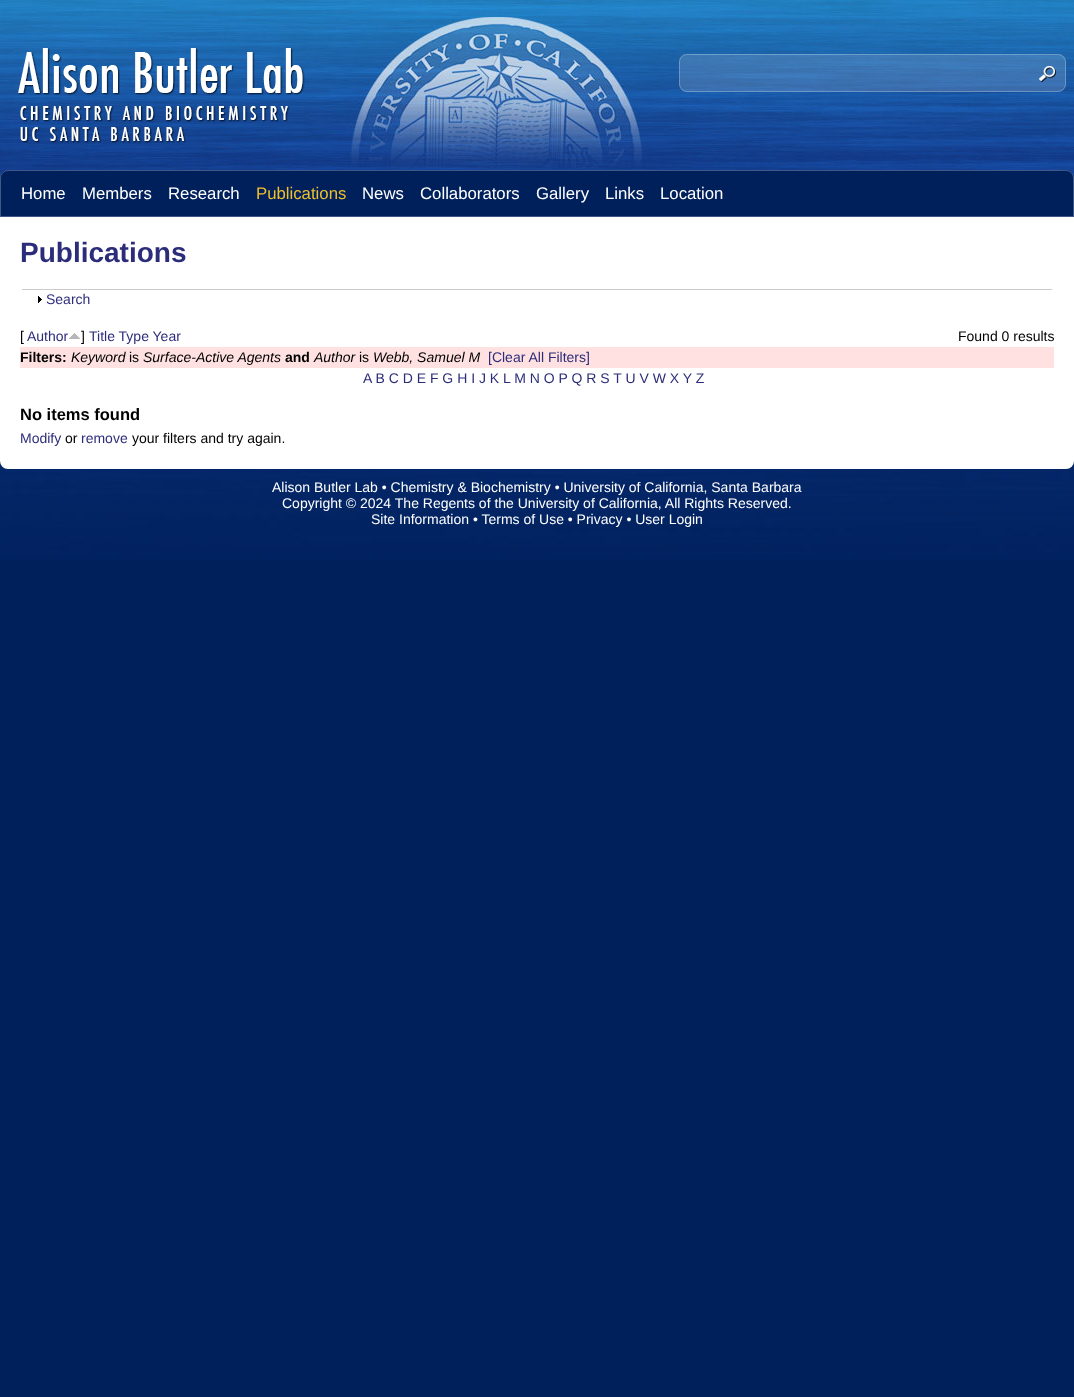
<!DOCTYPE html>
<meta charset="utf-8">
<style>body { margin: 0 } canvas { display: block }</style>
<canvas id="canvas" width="1074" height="1397"></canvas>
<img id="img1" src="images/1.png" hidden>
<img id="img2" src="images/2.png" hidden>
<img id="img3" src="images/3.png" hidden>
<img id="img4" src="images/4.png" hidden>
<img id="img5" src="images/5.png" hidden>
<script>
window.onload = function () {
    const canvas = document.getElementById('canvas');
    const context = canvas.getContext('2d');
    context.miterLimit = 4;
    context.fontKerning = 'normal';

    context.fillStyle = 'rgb(0, 32, 92)';
    context.fillRect(0, 0, 1074, 1397);
    context.drawImage(document.getElementById('img1'), 0, 0, 1074, 560);
    context.drawImage(document.getElementById('img2'), 18, 48, 287, 95);
    context.fillStyle = 'rgba(255, 255, 255, 0.15)';
    context.beginPath();
    context.roundRect(679, 54, 387, 38, 8);
    context.fill();
    context.drawImage(document.getElementById('img3'), 1039, 66, 17, 16);
    context.beginPath();
    context.roundRect(679.5, 54.5, 386, 37, 7.5);
    context.strokeStyle = 'rgba(255, 255, 255, 0.25)';
    context.stroke();
    context.fillStyle = 'rgb(0, 32, 92)';
    context.beginPath();
    context.roundRect(0, 170, 1074, 47, [8, 8, 0, 0]);
    context.fill();
    context.beginPath();
    context.roundRect(0.5, 170.5, 1073, 46, [7.5, 7.5, 0, 0]);
    context.stroke();
    context.fillStyle = 'rgb(255, 255, 255)';
    context.beginPath();
    context.roundRect(0, 217, 1074, 252, [0, 0, 8, 8]);
    context.fill();
    context.fillStyle = 'rgb(204, 204, 204)';
    context.fillRect(22, 289, 1030, 1);
    context.drawImage(document.getElementById('img4'), 38, 296, 4, 7);
    context.drawImage(document.getElementById('img5'), 69, 333, 11, 6);
    context.fillStyle = 'rgb(255, 225, 225)';
    context.fillRect(20, 347, 1034, 21);
    context.font = '16.75px Liberation Sans';
    context.fillStyle = 'rgb(255, 255, 255)';
    context.fillText('Home', 21, 199);
    context.fillText('Members', 82, 199);
    context.fillText('Research', 168, 199);
    context.fillStyle = 'rgb(239, 192, 44)';
    context.fillText('Publications', 256, 199);
    context.fillStyle = 'rgb(255, 255, 255)';
    context.fillText('News', 362, 199);
    context.fillText('Collaborators', 420, 199);
    context.fillText('Gallery', 536, 199);
    context.fillText('Links', 605, 199);
    context.fillText('Location', 660, 199);
    context.font = 'bold 28px Liberation Sans';
    context.fillStyle = 'rgb(44, 45, 122)';
    context.fillText('Publications', 20, 262);
    context.font = '14px Liberation Sans';
    context.fillText('Search', 46, 304);
    context.fillStyle = 'rgb(0, 0, 0)';
    context.fillText('[', 20, 341);
    context.fillStyle = 'rgb(44, 45, 122)';
    context.fillText('Author', 27, 341);
    context.fillStyle = 'rgb(0, 0, 0)';
    context.fillText(']', 81, 341);
    context.fillStyle = 'rgb(44, 45, 122)';
    context.fillText('Title Type Year', 89, 341);
    context.fillStyle = 'rgb(0, 0, 0)';
    context.fillText('Found 0 results', 958, 341);
    context.font = 'bold 14px Liberation Sans';
    context.fillText('Filters:', 20, 362);
    context.font = 'italic 14px Liberation Sans';
    context.fillText('Keyword', 71, 362);
    context.font = '14px Liberation Sans';
    context.fillText('is', 129, 362);
    context.font = 'italic 14px Liberation Sans';
    context.fillText('Surface-Active Agents', 143, 362);
    context.font = 'bold 14px Liberation Sans';
    context.fillText('and', 285, 362);
    context.font = 'italic 14px Liberation Sans';
    context.fillText('Author', 314, 362);
    context.font = '14px Liberation Sans';
    context.fillText('is', 359, 362);
    context.font = 'italic 14px Liberation Sans';
    context.fillText('Webb, Samuel M', 373, 362);
    context.font = '14px Liberation Sans';
    context.fillStyle = 'rgb(44, 45, 122)';
    context.fillText('[Clear All Filters]', 488, 362);
    context.fillText('A B C D E F G H I J K L M N O P Q R S T U V W X Y Z', 363, 383);
    context.font = 'bold 16.5px Liberation Sans';
    context.fillStyle = 'rgb(0, 0, 0)';
    context.fillText('No items found', 20, 420);
    context.font = '14px Liberation Sans';
    context.fillStyle = 'rgb(44, 45, 122)';
    context.fillText('Modify', 20, 443);
    context.fillStyle = 'rgb(0, 0, 0)';
    context.fillText('or', 65, 443);
    context.fillStyle = 'rgb(44, 45, 122)';
    context.fillText('remove', 81, 443);
    context.fillStyle = 'rgb(0, 0, 0)';
    context.fillText('your filters and try again.', 132, 443);
    context.fillStyle = 'rgb(255, 255, 255)';
    context.fillText('Alison Butler Lab • Chemistry & Biochemistry • University of California, Santa Barbara', 272, 492);
    context.fillText('Copyright © 2024 The Regents of the University of California, All Rights Reserved.', 282, 508);
    context.fillText('Site Information • Terms of Use • Privacy • User Login', 371, 524);
};
</script>
